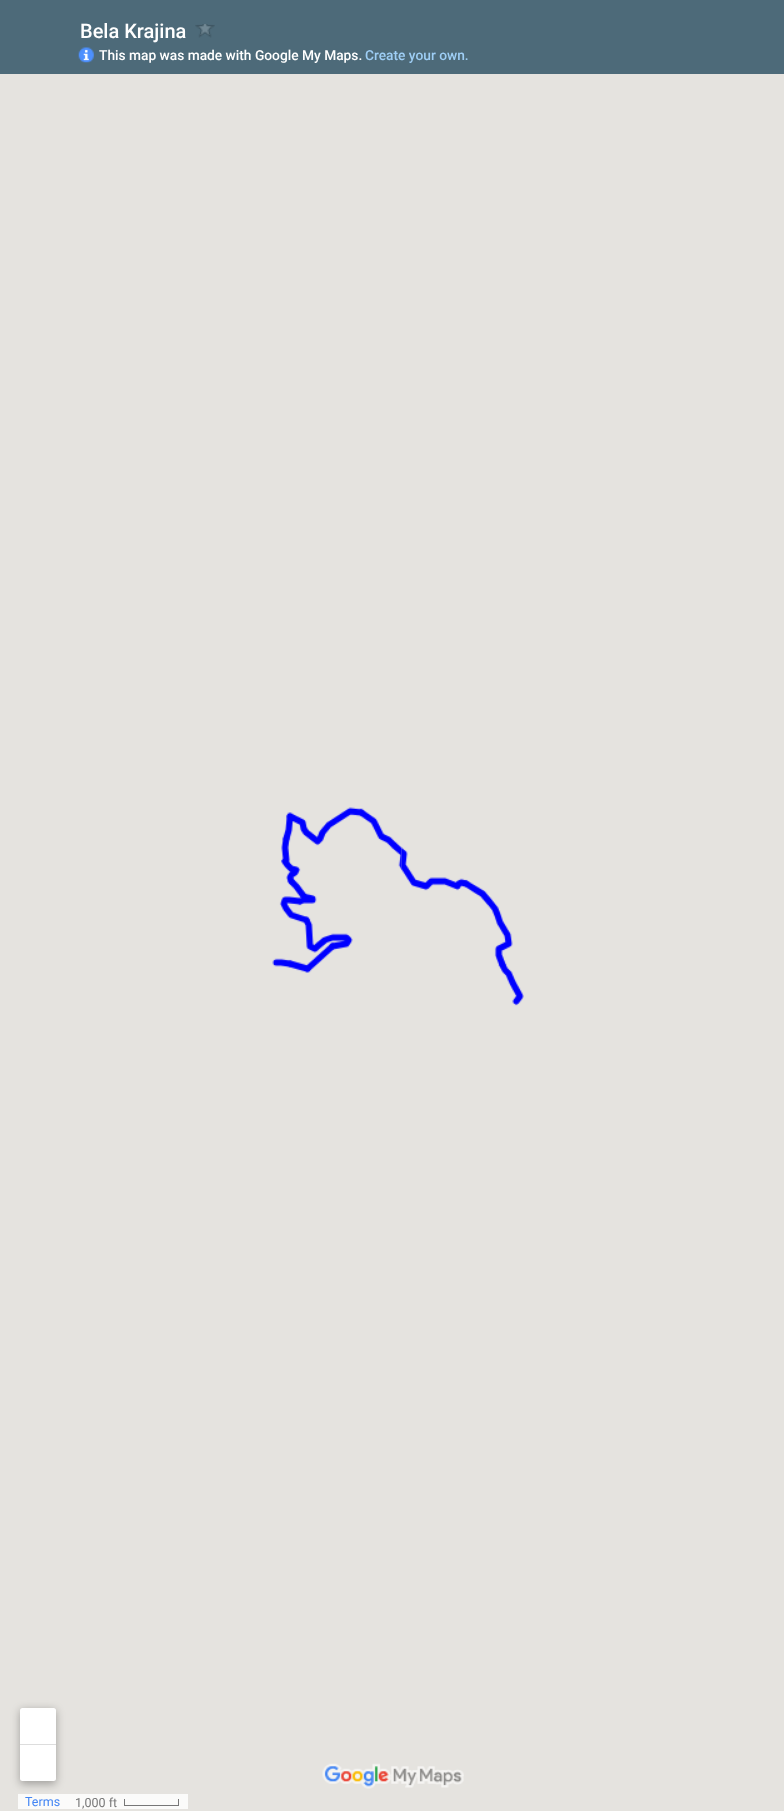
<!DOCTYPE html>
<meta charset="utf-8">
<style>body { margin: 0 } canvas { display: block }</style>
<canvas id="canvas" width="784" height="1811"></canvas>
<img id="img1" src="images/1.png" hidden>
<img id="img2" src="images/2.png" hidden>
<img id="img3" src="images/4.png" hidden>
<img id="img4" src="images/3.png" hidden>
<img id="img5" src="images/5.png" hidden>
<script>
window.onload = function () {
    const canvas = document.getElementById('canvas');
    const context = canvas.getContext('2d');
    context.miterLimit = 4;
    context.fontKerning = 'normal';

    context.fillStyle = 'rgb(229, 227, 223)';
    context.fillRect(0, 0, 784, 1811);
    context.fillStyle = 'rgb(77, 106, 121)';
    context.fillRect(0, 0, 784, 74);
    context.drawImage(document.getElementById('img1'), 195, 24, 20, 14);
    context.drawImage(document.getElementById('img2'), 78, 47, 16, 16);
    context.drawImage(document.getElementById('img3'), 401, 847, 123, 159);
    context.drawImage(document.getElementById('img4'), 272, 807, 130, 166);
    context.fillStyle = 'rgba(0, 0, 0, 0.3)';
    context.filter = 'blur(4px)';
    context.beginPath();
    context.roundRect(20, 1710, 36, 74, 2.5);
    context.fill();
    context.filter = 'none';
    context.fillStyle = 'rgb(255, 255, 255)';
    context.beginPath();
    context.roundRect(20, 1708, 36, 73, 2.5);
    context.fill();
    context.fillStyle = 'rgb(221, 221, 221)';
    context.fillRect(20, 1744, 36, 1);
    context.drawImage(document.getElementById('img5'), 322, 1763, 142, 26);
    context.fillStyle = 'rgb(251, 251, 250)';
    context.fillRect(18, 1794, 170, 15);
    context.fillStyle = 'rgb(119, 119, 119)';
    context.fillRect(124, 1805, 55, 1);
    context.fillRect(124, 1799, 1, 7);
    context.fillRect(178, 1799, 1, 7);
    context.font = '500 20px Roboto';
    context.fillStyle = 'rgb(255, 255, 255)';
    context.fillText('Bela Krajina', 80, 38);
    context.font = '500 13.75px Roboto';
    context.fillText('This map was made with Google My Maps.', 99, 60);
    context.fillStyle = 'rgb(158, 206, 245)';
    context.fillText('Create your own.', 365, 60);
    context.font = '12.5px Roboto';
    context.fillStyle = 'rgb(66, 133, 244)';
    context.fillText('Terms', 25, 1806);
    context.fillStyle = 'rgb(119, 119, 119)';
    context.fillText('1,000 ft', 75, 1807);
};
</script>
